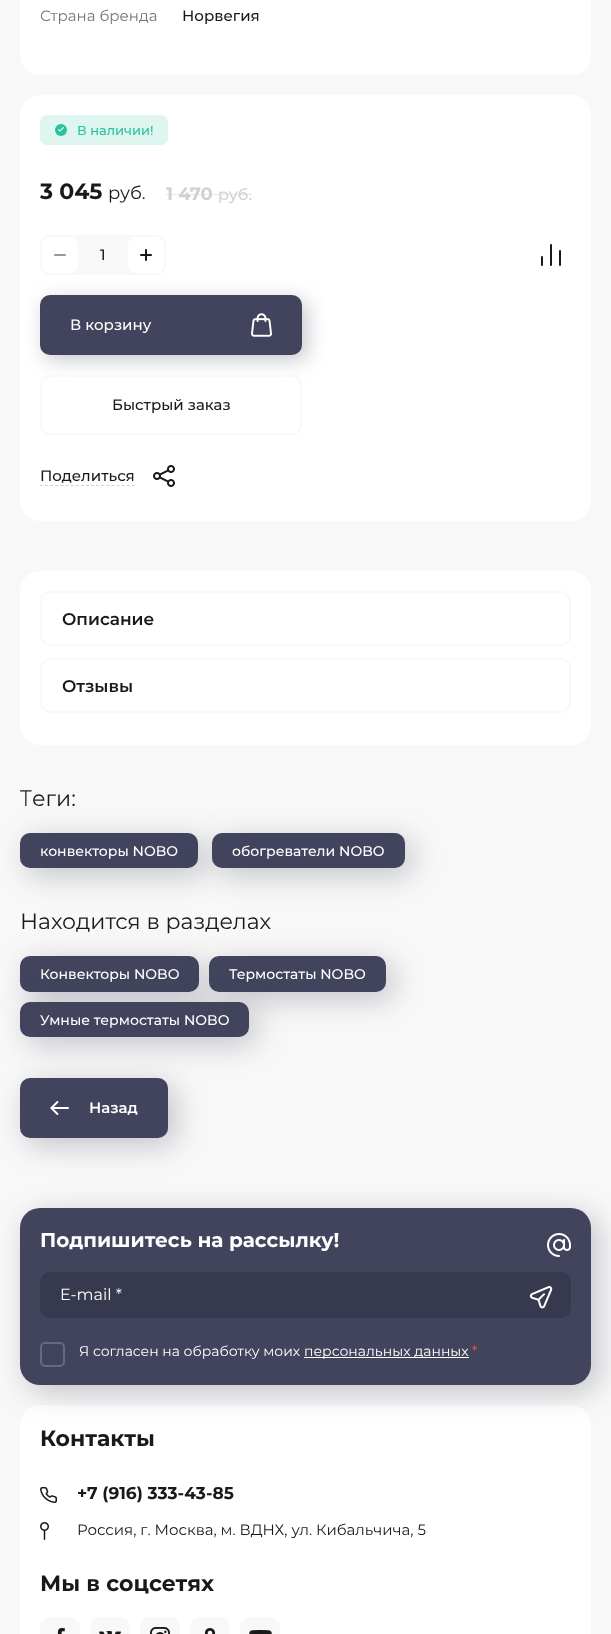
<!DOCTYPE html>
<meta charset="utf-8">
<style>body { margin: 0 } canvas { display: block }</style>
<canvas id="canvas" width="611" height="1634"></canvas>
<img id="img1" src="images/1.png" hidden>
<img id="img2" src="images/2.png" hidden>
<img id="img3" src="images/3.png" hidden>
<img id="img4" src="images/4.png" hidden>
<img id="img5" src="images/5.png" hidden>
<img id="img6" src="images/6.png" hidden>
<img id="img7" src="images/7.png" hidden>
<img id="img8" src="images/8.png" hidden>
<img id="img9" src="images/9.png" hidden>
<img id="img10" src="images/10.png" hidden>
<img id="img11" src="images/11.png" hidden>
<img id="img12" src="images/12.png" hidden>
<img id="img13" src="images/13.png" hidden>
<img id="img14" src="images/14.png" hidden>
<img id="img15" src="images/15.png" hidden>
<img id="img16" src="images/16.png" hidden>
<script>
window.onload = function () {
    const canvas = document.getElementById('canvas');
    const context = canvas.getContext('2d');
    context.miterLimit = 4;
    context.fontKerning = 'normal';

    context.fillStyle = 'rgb(248, 248, 248)';
    context.fillRect(0, 0, 611, 1634);
    context.fillStyle = 'rgb(255, 255, 255)';
    context.beginPath();
    context.moveTo(20, -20);
    context.lineTo(591, -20);
    context.lineTo(591, 55);
    context.bezierCurveTo(591, 66, 582, 75, 571, 75);
    context.lineTo(40, 75);
    context.bezierCurveTo(29, 75, 20, 66, 20, 55);
    context.closePath();
    context.fill();
    context.beginPath();
    context.roundRect(20, 95, 571, 426, 20);
    context.fill();
    context.fillStyle = 'rgb(223, 246, 240)';
    context.beginPath();
    context.roundRect(40, 115, 128, 30, 7);
    context.fill();
    context.fillStyle = 'rgb(41, 194, 158)';
    context.beginPath();
    context.arc(61, 130, 6, 0, 2 * Math.PI);
    context.fill();
    context.drawImage(document.getElementById('img1'), 58, 127, 6, 5);
    context.fillStyle = 'rgba(25, 25, 25, 0.1)';
    context.fillRect(166, 194, 86, 1);
    context.fillStyle = 'rgb(248, 248, 248)';
    context.beginPath();
    context.roundRect(40, 235, 126, 40, 10);
    context.fill();
    context.fillStyle = 'rgb(255, 255, 255)';
    context.beginPath();
    context.roundRect(42, 237, 36, 36, 8);
    context.fill();
    context.drawImage(document.getElementById('img2'), 54, 254, 12, 2);
    context.beginPath();
    context.roundRect(128, 237, 36, 36, 8);
    context.fill();
    context.drawImage(document.getElementById('img3'), 140, 249, 12, 12);
    context.drawImage(document.getElementById('img4'), 541, 244, 20, 22);
    context.fillStyle = 'rgba(65, 68, 92, 0.3)';
    context.filter = 'blur(10px)';
    context.beginPath();
    context.roundRect(45, 300, 262, 60, 10);
    context.fill();
    context.filter = 'none';
    context.fillStyle = 'rgb(65, 68, 92)';
    context.beginPath();
    context.roundRect(40, 295, 262, 60, 10);
    context.fill();
    context.drawImage(document.getElementById('img5'), 251, 313, 21, 24);
    context.beginPath();
    context.roundRect(41, 376, 260, 58, 9);
    context.strokeStyle = 'rgb(248, 248, 248)';
    context.lineWidth = 2;
    context.stroke();
    context.beginPath();
    context.moveTo(40, 485.5);
    context.lineTo(135, 485.5);
    context.strokeStyle = 'rgb(209, 209, 209)';
    context.lineWidth = 1;
    context.setLineDash([3, 2.11]);
    context.stroke();
    context.drawImage(document.getElementById('img6'), 153, 465, 22, 22);
    context.fillStyle = 'rgb(255, 255, 255)';
    context.beginPath();
    context.roundRect(20, 571, 571, 174, 20);
    context.fill();
    context.beginPath();
    context.roundRect(41, 592, 529, 53, 9);
    context.strokeStyle = 'rgb(248, 248, 248)';
    context.lineWidth = 2;
    context.setLineDash([]);
    context.stroke();
    context.beginPath();
    context.roundRect(41, 659, 529, 53, 9);
    context.stroke();
    context.fillStyle = 'rgba(65, 68, 92, 0.3)';
    context.filter = 'blur(15px)';
    context.beginPath();
    context.roundRect(27, 840, 178, 35, 10);
    context.fill();
    context.filter = 'none';
    context.fillStyle = 'rgb(65, 68, 92)';
    context.beginPath();
    context.roundRect(20, 833, 178, 35, 10);
    context.fill();
    context.fillStyle = 'rgba(65, 68, 92, 0.3)';
    context.filter = 'blur(15px)';
    context.beginPath();
    context.roundRect(219, 840, 193, 35, 10);
    context.fill();
    context.filter = 'none';
    context.fillStyle = 'rgb(65, 68, 92)';
    context.beginPath();
    context.roundRect(212, 833, 193, 35, 10);
    context.fill();
    context.fillStyle = 'rgba(65, 68, 92, 0.3)';
    context.filter = 'blur(15px)';
    context.beginPath();
    context.roundRect(27, 963, 179, 36, 10);
    context.fill();
    context.filter = 'none';
    context.fillStyle = 'rgb(65, 68, 92)';
    context.beginPath();
    context.roundRect(20, 956, 179, 36, 10);
    context.fill();
    context.fillStyle = 'rgba(65, 68, 92, 0.3)';
    context.filter = 'blur(15px)';
    context.beginPath();
    context.roundRect(216, 963, 177, 36, 10);
    context.fill();
    context.filter = 'none';
    context.fillStyle = 'rgb(65, 68, 92)';
    context.beginPath();
    context.roundRect(209, 956, 177, 36, 10);
    context.fill();
    context.fillStyle = 'rgba(65, 68, 92, 0.3)';
    context.filter = 'blur(15px)';
    context.beginPath();
    context.roundRect(27, 1009, 229, 35, 10);
    context.fill();
    context.filter = 'none';
    context.fillStyle = 'rgb(65, 68, 92)';
    context.beginPath();
    context.roundRect(20, 1002, 229, 35, 10);
    context.fill();
    context.fillStyle = 'rgba(65, 68, 92, 0.3)';
    context.filter = 'blur(15px)';
    context.beginPath();
    context.roundRect(27, 1085, 148, 60, 10);
    context.fill();
    context.filter = 'none';
    context.fillStyle = 'rgb(65, 68, 92)';
    context.beginPath();
    context.roundRect(20, 1078, 148, 60, 10);
    context.fill();
    context.drawImage(document.getElementById('img7'), 50, 1101, 19, 14);
    context.fillStyle = 'rgb(255, 255, 255)';
    context.beginPath();
    context.roundRect(20, 1405, 571, 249, 20);
    context.fill();
    context.fillStyle = 'rgba(65, 68, 92, 0.3)';
    context.filter = 'blur(15px)';
    context.beginPath();
    context.roundRect(27, 1215, 571, 177, 20);
    context.fill();
    context.filter = 'none';
    context.fillStyle = 'rgb(65, 68, 92)';
    context.beginPath();
    context.roundRect(20, 1208, 571, 177, 20);
    context.fill();
    context.drawImage(document.getElementById('img8'), 547, 1233, 24, 24);
    context.fillStyle = 'rgb(55, 58, 78)';
    context.beginPath();
    context.roundRect(40, 1272, 531, 46, 10);
    context.fill();
    context.drawImage(document.getElementById('img9'), 529, 1286, 24, 23);
    context.beginPath();
    context.roundRect(41, 1343, 23, 23, 4);
    context.strokeStyle = 'rgb(103, 105, 125)';
    context.stroke();
    context.fillStyle = 'rgb(255, 255, 255)';
    context.fillRect(304, 1357, 165, 1);
    context.drawImage(document.getElementById('img10'), 40, 1487, 17, 16);
    context.drawImage(document.getElementById('img11'), 40, 1522, 9, 18);
    context.fillStyle = 'rgb(248, 248, 248)';
    context.beginPath();
    context.roundRect(40, 1617, 40, 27, 10);
    context.fill();
    context.drawImage(document.getElementById('img12'), 57, 1628, 8, 6);
    context.beginPath();
    context.roundRect(90, 1617, 40, 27, 10);
    context.fill();
    context.drawImage(document.getElementById('img13'), 99, 1631, 22, 3);
    context.beginPath();
    context.roundRect(140, 1617, 40, 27, 10);
    context.fill();
    context.drawImage(document.getElementById('img14'), 150, 1627, 20, 7);
    context.beginPath();
    context.roundRect(190, 1617, 40, 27, 10);
    context.fill();
    context.drawImage(document.getElementById('img15'), 204, 1628, 12, 6);
    context.beginPath();
    context.roundRect(240, 1617, 40, 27, 10);
    context.fill();
    context.drawImage(document.getElementById('img16'), 249, 1630, 23, 4);
    context.font = '15px Montserrat';
    context.fillStyle = 'rgb(117, 117, 117)';
    context.fillText('Страна бренда', 40, 21);
    context.font = '500 15px Montserrat';
    context.fillStyle = 'rgb(25, 25, 25)';
    context.fillText('Норвегия', 182, 21);
    context.font = '500 13px Montserrat';
    context.fillStyle = 'rgb(41, 194, 158)';
    context.fillText('В наличии!', 77, 135);
    context.font = 'bold 22px Montserrat';
    context.fillStyle = 'rgb(25, 25, 25)';
    context.fillText('3 045', 40, 199);
    context.font = '18px Montserrat';
    context.fillText('руб.', 108, 199);
    context.font = 'bold 18px Montserrat';
    context.fillStyle = 'rgb(209, 209, 209)';
    context.fillText('1 470', 166, 200);
    context.font = '500 16px Montserrat';
    context.fillText('руб.', 218, 200);
    context.font = '500 15px Montserrat';
    context.fillStyle = 'rgb(25, 25, 25)';
    context.fillText('1', 100, 260);
    context.fillStyle = 'rgb(255, 255, 255)';
    context.fillText('В корзину', 70, 330);
    context.fillStyle = 'rgb(25, 25, 25)';
    context.fillText('Быстрый заказ', 112, 410);
    context.fillText('Поделиться', 40, 481);
    context.font = '600 17px Montserrat';
    context.fillText('Описание', 62, 625);
    context.fillText('Отзывы', 62, 692);
    context.font = '300 22px Noto Sans';
    context.fillText('Т', 20, 806);
    context.font = '22px Montserrat';
    context.fillText('еги:', 32, 806);
    context.font = '500 14px Montserrat';
    context.fillStyle = 'rgb(255, 255, 255)';
    context.fillText('конвекторы NOBO', 40, 856);
    context.fillText('обогреватели NOBO', 232, 856);
    context.font = '22px Montserrat';
    context.fillStyle = 'rgb(25, 25, 25)';
    context.fillText('Находится в разделах', 20, 929);
    context.font = '500 14px Montserrat';
    context.fillStyle = 'rgb(255, 255, 255)';
    context.fillText('Конвекторы NOBO', 40, 979);
    context.fillText('Термостаты NOBO', 229, 979);
    context.fillText('Умные термостаты NOBO', 40, 1025);
    context.font = '600 15px Montserrat';
    context.fillText('Назад', 89, 1113);
    context.font = 'bold 20px Montserrat';
    context.fillText('Подпишитесь на рассылку!', 40, 1247);
    context.font = '16px Montserrat';
    context.fillText('E-mail *', 60, 1300);
    context.font = '14px Montserrat';
    context.fillText('Я согласен на обработку моих', 79, 1356);
    context.fillText('персональных данных', 304, 1356);
    context.fillStyle = 'rgb(255, 86, 64)';
    context.fillText('*', 472, 1356);
    context.font = 'bold 22px Montserrat';
    context.fillStyle = 'rgb(25, 25, 25)';
    context.fillText('Контакты', 40, 1446);
    context.font = 'bold 17px Montserrat';
    context.fillText('+7 (916) 333-43-85', 77, 1499);
    context.font = '15px Montserrat';
    context.fillText('Россия, г. Москва, м. ВДНХ, ул. Кибальчича, 5', 77, 1535);
    context.font = 'bold 22px Montserrat';
    context.fillText('Мы в соцсетях', 40, 1591);
};
</script>
